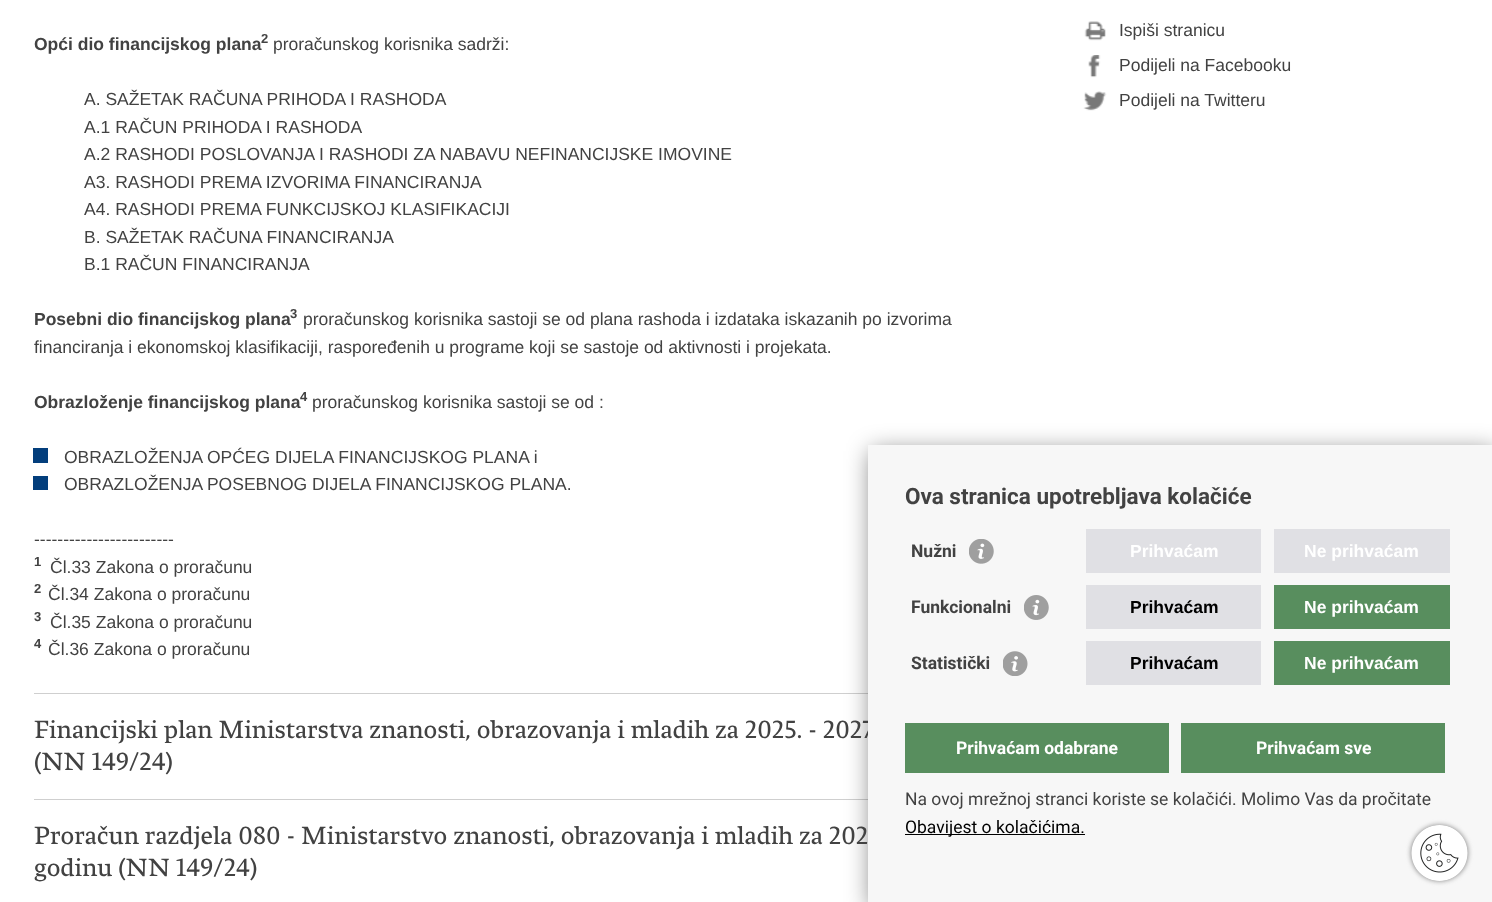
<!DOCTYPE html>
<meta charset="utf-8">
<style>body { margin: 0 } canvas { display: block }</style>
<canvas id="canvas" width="1492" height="902"></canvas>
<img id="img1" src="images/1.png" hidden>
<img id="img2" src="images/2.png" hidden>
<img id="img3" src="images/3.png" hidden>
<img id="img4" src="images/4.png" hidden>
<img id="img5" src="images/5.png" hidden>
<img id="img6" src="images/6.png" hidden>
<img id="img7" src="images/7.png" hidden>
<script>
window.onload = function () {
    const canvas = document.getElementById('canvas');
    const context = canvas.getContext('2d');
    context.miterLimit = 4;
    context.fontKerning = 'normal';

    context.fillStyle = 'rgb(255, 255, 255)';
    context.fillRect(0, 0, 1492, 902);
    context.fillStyle = 'rgb(3, 62, 124)';
    context.fillRect(33, 448, 15, 15);
    context.fillRect(33, 476, 15, 14);
    context.fillStyle = 'rgb(207, 207, 207)';
    context.fillRect(34, 693, 834, 1);
    context.fillRect(34, 799, 834, 1);
    context.drawImage(document.getElementById('img1'), 1084, 21, 22, 20);
    context.drawImage(document.getElementById('img2'), 1088, 55, 13, 23);
    context.drawImage(document.getElementById('img3'), 1083, 91, 24, 20);
    context.fillStyle = 'rgba(0, 0, 0, 0.5)';
    context.filter = 'blur(12.5px)';
    context.beginPath();
    context.rect(871, 451, 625, 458);
    context.fill();
    context.filter = 'none';
    context.font = 'bold 17.5px Liberation Sans';
    context.fillStyle = 'rgb(66, 66, 66)';
    context.fillText('Opći dio financijskog plana', 34, 50);
    context.font = 'bold 13px Liberation Sans';
    context.fillText('2', 261, 43);
    context.font = '17.5px Liberation Sans';
    context.fillText('proračunskog korisnika sadrži:', 273, 50);
    context.fillText('A. SAŽETAK RAČUNA PRIHODA I RASHODA', 84, 105);
    context.fillText('A.1 RAČUN PRIHODA I RASHODA', 84, 133);
    context.fillText('A.2 RASHODI POSLOVANJA I RASHODI ZA NABAVU NEFINANCIJSKE IMOVINE', 84, 160);
    context.fillText('A3. RASHODI PREMA IZVORIMA FINANCIRANJA', 84, 188);
    context.fillText('A4. RASHODI PREMA FUNKCIJSKOJ KLASIFIKACIJI', 84, 215);
    context.fillText('B. SAŽETAK RAČUNA FINANCIRANJA', 84, 243);
    context.fillText('B.1 RAČUN FINANCIRANJA', 84, 270);
    context.font = 'bold 17.5px Liberation Sans';
    context.fillText('Posebni dio financijskog plana', 34, 325);
    context.font = 'bold 13px Liberation Sans';
    context.fillText('3', 290, 318);
    context.font = '17.5px Liberation Sans';
    context.fillText('proračunskog korisnika sastoji se od plana rashoda i izdataka iskazanih po izvorima', 303, 325);
    context.fillText('financiranja i ekonomskoj klasifikaciji, raspoređenih u programe koji se sastoje od aktivnosti i projekata.', 34, 353);
    context.font = 'bold 17.5px Liberation Sans';
    context.fillText('Obrazloženje financijskog plana', 34, 408);
    context.font = 'bold 13px Liberation Sans';
    context.fillText('4', 300, 401);
    context.font = '17.5px Liberation Sans';
    context.fillText('proračunskog korisnika sastoji se od :', 312, 408);
    context.fillText('OBRAZLOŽENJA OPĆEG DIJELA FINANCIJSKOG PLANA i', 64, 463);
    context.fillText('OBRAZLOŽENJA POSEBNOG DIJELA FINANCIJSKOG PLANA.', 64, 490);
    context.fillText('------------------------', 34, 545);
    context.font = 'bold 13px Liberation Sans';
    context.fillText('1', 34, 566);
    context.font = '17.5px Liberation Sans';
    context.fillText('Čl.33 Zakona o proračunu', 50, 573);
    context.font = 'bold 13px Liberation Sans';
    context.fillText('2', 34, 593);
    context.font = '17.5px Liberation Sans';
    context.fillText('Čl.34 Zakona o proračunu', 48, 600);
    context.font = 'bold 13px Liberation Sans';
    context.fillText('3', 34, 621);
    context.font = '17.5px Liberation Sans';
    context.fillText('Čl.35 Zakona o proračunu', 50, 628);
    context.font = 'bold 13px Liberation Sans';
    context.fillText('4', 34, 648);
    context.font = '17.5px Liberation Sans';
    context.fillText('Čl.36 Zakona o proračunu', 48, 655);
    context.font = '26.25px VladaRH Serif';
    context.fillText('Financijski plan Ministarstva znanosti, obrazovanja i mladih za 2025. - 2027', 34, 738);
    context.fillText('(NN 149/24)', 34, 770);
    context.fillText('Proračun razdjela 080 - Ministarstvo znanosti, obrazovanja i mladih za 202', 34, 844);
    context.fillText('godinu (NN 149/24)', 34, 876);
    context.font = '17.5px Liberation Sans';
    context.fillText('Ispiši stranicu', 1119, 36);
    context.fillText('Podijeli na Facebooku', 1119, 71);
    context.fillText('Podijeli na Twitteru', 1119, 106);
    context.fillStyle = 'rgb(247, 247, 247)';
    context.fillRect(868, 445, 624, 457);
    context.font = 'bold 22.5px Roboto';
    context.fillStyle = 'rgb(66, 66, 66)';
    context.fillText('Ova stranica upotrebljava kolačiće', 905, 504);
    context.font = 'bold 17.5px Roboto';
    context.fillText('Nužni', 911, 557);
    context.drawImage(document.getElementById('img4'), 969, 539, 25, 25);
    context.fillStyle = 'rgb(224, 224, 228)';
    context.fillRect(1086, 529, 175, 44);
    context.font = 'bold 17.5px Liberation Sans';
    context.fillStyle = 'rgb(255, 255, 255)';
    context.fillText('Prihvaćam', 1130, 557);
    context.fillStyle = 'rgb(224, 224, 228)';
    context.fillRect(1274, 529, 176, 44);
    context.fillStyle = 'rgb(255, 255, 255)';
    context.fillText('Ne prihvaćam', 1304, 557);
    context.font = 'bold 17.5px Roboto';
    context.fillStyle = 'rgb(66, 66, 66)';
    context.fillText('Funkcionalni', 911, 613);
    context.drawImage(document.getElementById('img5'), 1024, 595, 25, 25);
    context.fillStyle = 'rgb(224, 224, 228)';
    context.fillRect(1086, 585, 175, 44);
    context.font = 'bold 17.5px Liberation Sans';
    context.fillStyle = 'rgb(0, 0, 0)';
    context.fillText('Prihvaćam', 1130, 613);
    context.fillStyle = 'rgb(88, 142, 94)';
    context.fillRect(1274, 585, 176, 44);
    context.fillStyle = 'rgb(255, 255, 255)';
    context.fillText('Ne prihvaćam', 1304, 613);
    context.font = 'bold 17.5px Roboto';
    context.fillStyle = 'rgb(66, 66, 66)';
    context.fillText('Statistički', 911, 669);
    context.drawImage(document.getElementById('img6'), 1003, 651, 25, 25);
    context.fillStyle = 'rgb(224, 224, 228)';
    context.fillRect(1086, 641, 175, 44);
    context.font = 'bold 17.5px Liberation Sans';
    context.fillStyle = 'rgb(0, 0, 0)';
    context.fillText('Prihvaćam', 1130, 669);
    context.fillStyle = 'rgb(88, 142, 94)';
    context.fillRect(1274, 641, 176, 44);
    context.fillStyle = 'rgb(255, 255, 255)';
    context.fillText('Ne prihvaćam', 1304, 669);
    context.fillStyle = 'rgb(88, 142, 94)';
    context.fillRect(905, 723, 264, 50);
    context.font = 'bold 17.5px Roboto';
    context.fillStyle = 'rgb(255, 255, 255)';
    context.fillText('Prihvaćam odabrane', 956, 754);
    context.fillStyle = 'rgb(88, 142, 94)';
    context.fillRect(1181, 723, 264, 50);
    context.fillStyle = 'rgb(255, 255, 255)';
    context.fillText('Prihvaćam sve', 1256, 754);
    context.font = '17.5px Roboto';
    context.fillStyle = 'rgb(66, 66, 66)';
    context.fillText('Na ovoj mrežnoj stranci koriste se kolačići. Molimo Vas da pročitate', 905, 805);
    context.fillStyle = 'rgb(0, 0, 0)';
    context.fillRect(905, 834, 180, 1);
    context.fillText('Obavijest o kolačićima.', 905, 833);
    context.fillStyle = 'rgb(133, 133, 133)';
    context.filter = 'blur(2.5px)';
    context.beginPath();
    context.roundRect(1411, 825, 57, 56, 28);
    context.fill();
    context.filter = 'none';
    context.drawImage(document.getElementById('img7'), 1411, 825, 57, 56);
};
</script>
